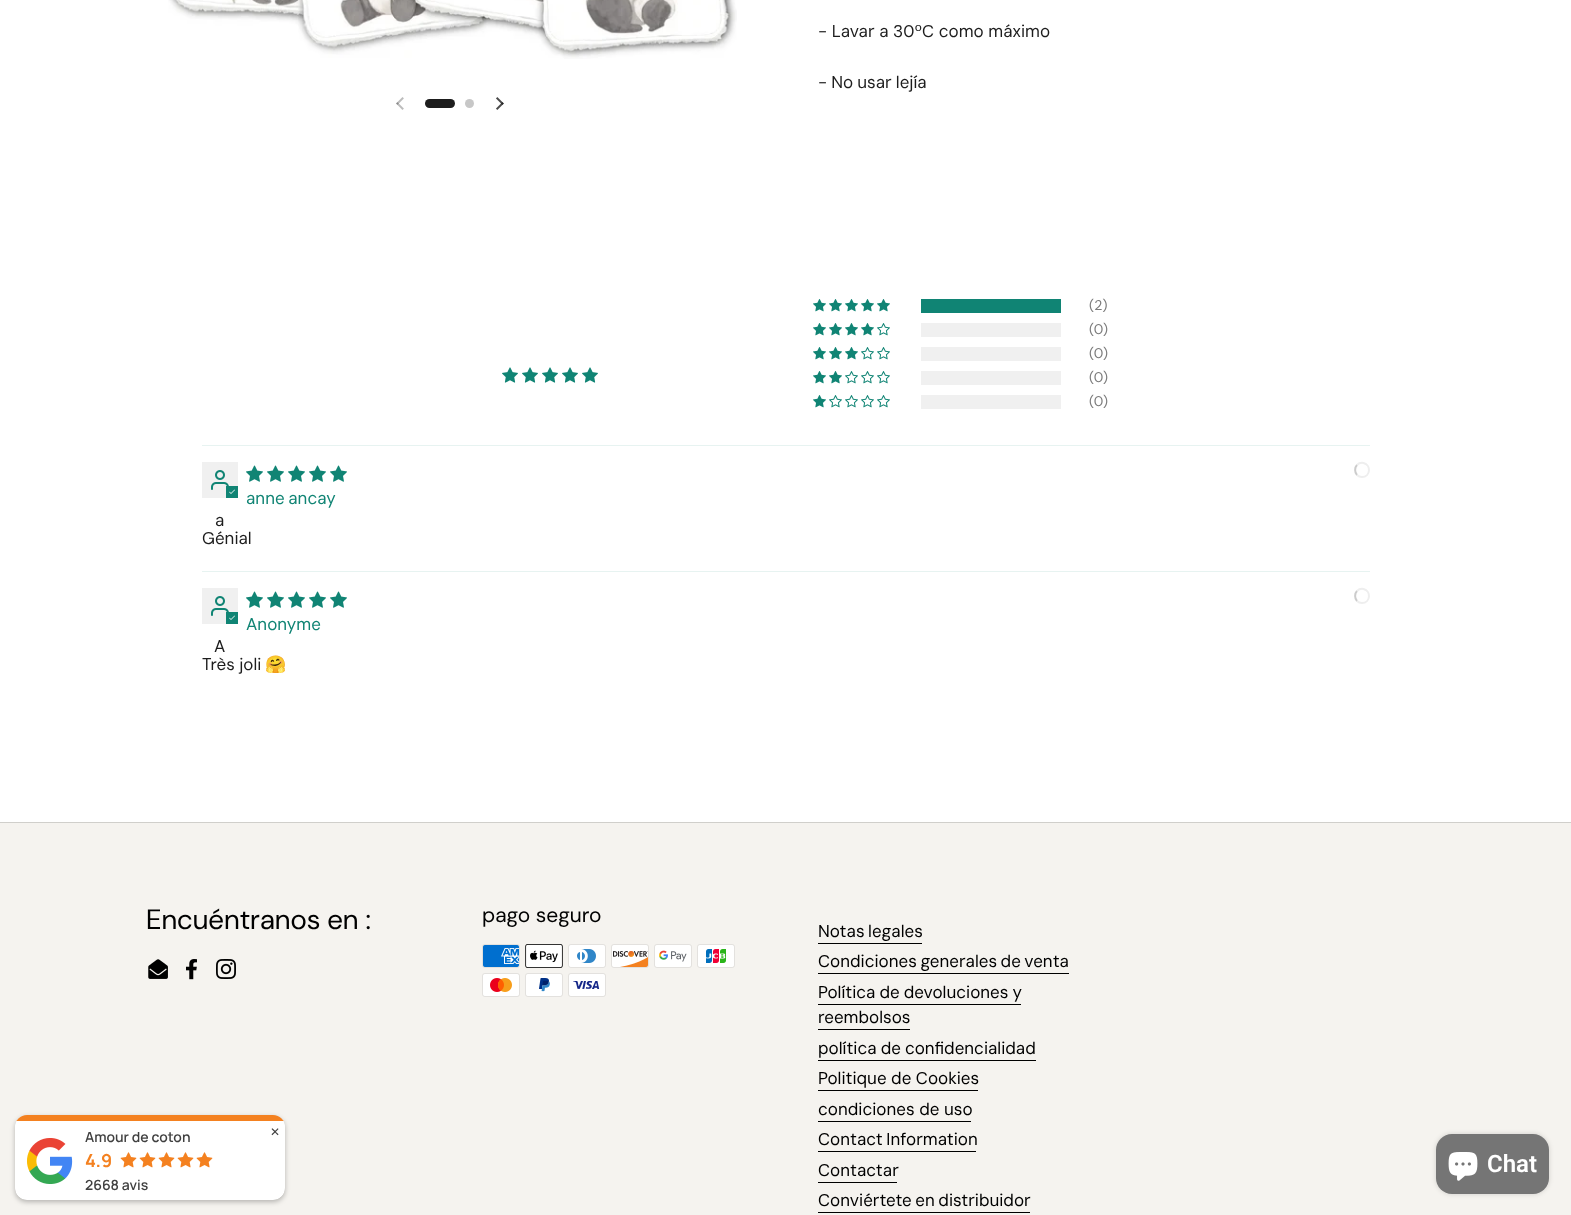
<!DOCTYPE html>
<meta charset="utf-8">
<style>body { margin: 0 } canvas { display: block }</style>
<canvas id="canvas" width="1571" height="1215"></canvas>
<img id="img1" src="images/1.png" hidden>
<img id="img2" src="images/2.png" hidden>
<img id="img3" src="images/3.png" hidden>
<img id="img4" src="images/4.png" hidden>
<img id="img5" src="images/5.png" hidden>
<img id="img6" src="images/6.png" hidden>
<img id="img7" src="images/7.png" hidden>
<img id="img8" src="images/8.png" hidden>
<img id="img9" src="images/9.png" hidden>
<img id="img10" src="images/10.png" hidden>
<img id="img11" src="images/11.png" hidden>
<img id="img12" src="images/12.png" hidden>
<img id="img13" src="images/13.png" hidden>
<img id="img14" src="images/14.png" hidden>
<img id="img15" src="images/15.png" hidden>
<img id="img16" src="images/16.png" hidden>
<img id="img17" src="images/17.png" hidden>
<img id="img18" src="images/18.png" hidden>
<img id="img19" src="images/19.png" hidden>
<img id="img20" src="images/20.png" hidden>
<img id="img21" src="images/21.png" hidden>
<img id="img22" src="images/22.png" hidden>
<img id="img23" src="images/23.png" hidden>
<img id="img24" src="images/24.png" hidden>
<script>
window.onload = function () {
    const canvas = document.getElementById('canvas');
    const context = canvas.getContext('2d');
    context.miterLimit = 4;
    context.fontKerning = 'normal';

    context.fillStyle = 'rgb(255, 255, 255)';
    context.fillRect(0, 0, 1571, 1215);
    context.drawImage(document.getElementById('img1'), 168, 0, 569, 59);
    context.drawImage(document.getElementById('img2'), 396, 97, 8, 13);
    context.fillStyle = 'rgb(29, 29, 29)';
    context.beginPath();
    context.roundRect(425, 99, 30, 9, 4.5);
    context.fill();
    context.fillStyle = 'rgb(199, 199, 199)';
    context.beginPath();
    context.arc(469.5, 103.5, 4.5, 0, 2 * Math.PI);
    context.fill();
    context.drawImage(document.getElementById('img3'), 496, 97, 8, 13);
    context.drawImage(document.getElementById('img4'), 502, 367, 16, 16);
    context.drawImage(document.getElementById('img4'), 522, 367, 16, 16);
    context.drawImage(document.getElementById('img4'), 542, 367, 16, 16);
    context.drawImage(document.getElementById('img4'), 562, 367, 16, 16);
    context.drawImage(document.getElementById('img4'), 582, 367, 16, 16);
    context.drawImage(document.getElementById('img5'), 813, 299, 13, 13);
    context.drawImage(document.getElementById('img5'), 829, 299, 13, 13);
    context.drawImage(document.getElementById('img5'), 845, 299, 13, 13);
    context.drawImage(document.getElementById('img5'), 861, 299, 13, 13);
    context.drawImage(document.getElementById('img5'), 877, 299, 13, 13);
    context.fillStyle = 'rgb(16, 132, 116)';
    context.fillRect(921, 299, 140, 14);
    context.drawImage(document.getElementById('img5'), 813, 323, 13, 13);
    context.drawImage(document.getElementById('img5'), 829, 323, 13, 13);
    context.drawImage(document.getElementById('img5'), 845, 323, 13, 13);
    context.drawImage(document.getElementById('img5'), 861, 323, 13, 13);
    context.drawImage(document.getElementById('img6'), 877, 323, 13, 13);
    context.fillStyle = 'rgb(240, 240, 240)';
    context.fillRect(921, 323, 140, 14);
    context.drawImage(document.getElementById('img5'), 813, 347, 13, 13);
    context.drawImage(document.getElementById('img5'), 829, 347, 13, 13);
    context.drawImage(document.getElementById('img5'), 845, 347, 13, 13);
    context.drawImage(document.getElementById('img6'), 861, 347, 13, 13);
    context.drawImage(document.getElementById('img6'), 877, 347, 13, 13);
    context.fillRect(921, 347, 140, 14);
    context.drawImage(document.getElementById('img5'), 813, 371, 13, 13);
    context.drawImage(document.getElementById('img5'), 829, 371, 13, 13);
    context.drawImage(document.getElementById('img6'), 845, 371, 13, 13);
    context.drawImage(document.getElementById('img6'), 861, 371, 13, 13);
    context.drawImage(document.getElementById('img6'), 877, 371, 13, 13);
    context.fillRect(921, 371, 140, 14);
    context.drawImage(document.getElementById('img5'), 813, 395, 13, 13);
    context.drawImage(document.getElementById('img6'), 829, 395, 13, 13);
    context.drawImage(document.getElementById('img6'), 845, 395, 13, 13);
    context.drawImage(document.getElementById('img6'), 861, 395, 13, 13);
    context.drawImage(document.getElementById('img6'), 877, 395, 13, 13);
    context.fillRect(921, 395, 140, 14);
    context.fillStyle = 'rgb(231, 243, 241)';
    context.fillRect(202, 445, 1168, 1);
    context.drawImage(document.getElementById('img7'), 246, 465, 17, 17);
    context.drawImage(document.getElementById('img7'), 267, 465, 17, 17);
    context.drawImage(document.getElementById('img7'), 288, 465, 17, 17);
    context.drawImage(document.getElementById('img7'), 309, 465, 17, 17);
    context.drawImage(document.getElementById('img7'), 330, 465, 17, 17);
    context.beginPath();
    context.moveTo(1357, 465);
    context.bezierCurveTo(1358.5, 463.5, 1361, 462.5, 1363.5, 463);
    context.bezierCurveTo(1371.5, 465, 1370.5, 477, 1362, 477);
    context.bezierCurveTo(1360, 477, 1358.5, 476.5, 1357, 475);
    context.strokeStyle = 'rgb(238, 238, 238)';
    context.lineWidth = 2;
    context.stroke();
    context.beginPath();
    context.moveTo(1357, 475);
    context.bezierCurveTo(1354.5, 472.5, 1354.5, 467.5, 1357, 465);
    context.strokeStyle = 'rgb(204, 204, 204)';
    context.stroke();
    context.fillStyle = 'rgb(240, 240, 240)';
    context.fillRect(202, 462, 36, 36);
    context.drawImage(document.getElementById('img8'), 211, 470, 18, 20);
    context.fillStyle = 'rgb(16, 132, 116)';
    context.fillRect(226, 486, 12, 12);
    context.drawImage(document.getElementById('img9'), 229, 489, 6, 5);
    context.fillStyle = 'rgb(231, 243, 241)';
    context.fillRect(202, 571, 1168, 1);
    context.drawImage(document.getElementById('img7'), 246, 591, 17, 17);
    context.drawImage(document.getElementById('img7'), 267, 591, 17, 17);
    context.drawImage(document.getElementById('img7'), 288, 591, 17, 17);
    context.drawImage(document.getElementById('img7'), 309, 591, 17, 17);
    context.drawImage(document.getElementById('img7'), 330, 591, 17, 17);
    context.beginPath();
    context.moveTo(1357, 591);
    context.bezierCurveTo(1358.5, 589.5, 1361, 588.5, 1363.5, 589);
    context.bezierCurveTo(1371.5, 591, 1370.5, 603, 1362, 603);
    context.bezierCurveTo(1360, 603, 1358.5, 602.5, 1357, 601);
    context.strokeStyle = 'rgb(238, 238, 238)';
    context.stroke();
    context.beginPath();
    context.moveTo(1357, 601);
    context.bezierCurveTo(1354.5, 598.5, 1354.5, 593.5, 1357, 591);
    context.strokeStyle = 'rgb(204, 204, 204)';
    context.stroke();
    context.fillStyle = 'rgb(240, 240, 240)';
    context.fillRect(202, 588, 36, 36);
    context.drawImage(document.getElementById('img8'), 211, 596, 18, 20);
    context.fillStyle = 'rgb(16, 132, 116)';
    context.fillRect(226, 612, 12, 12);
    context.drawImage(document.getElementById('img9'), 229, 615, 6, 5);
    context.fillStyle = 'rgb(245, 243, 239)';
    context.fillRect(0, 823, 1571, 392);
    context.fillStyle = 'rgb(208, 207, 203)';
    context.fillRect(0, 822, 1571, 1);
    context.drawImage(document.getElementById('img10'), 148, 959, 20, 20);
    context.drawImage(document.getElementById('img11'), 186, 959, 11, 21);
    context.drawImage(document.getElementById('img12'), 216, 959, 20, 20);
    context.drawImage(document.getElementById('img13'), 482, 944, 38, 24);
    context.drawImage(document.getElementById('img14'), 525, 944, 38, 24);
    context.drawImage(document.getElementById('img15'), 568, 944, 38, 24);
    context.drawImage(document.getElementById('img16'), 611, 944, 38, 24);
    context.drawImage(document.getElementById('img17'), 654, 944, 38, 24);
    context.drawImage(document.getElementById('img18'), 697, 944, 38, 24);
    context.drawImage(document.getElementById('img19'), 482, 973, 38, 24);
    context.drawImage(document.getElementById('img20'), 525, 973, 38, 24);
    context.drawImage(document.getElementById('img21'), 568, 973, 38, 24);
    context.fillStyle = 'rgb(0, 0, 0)';
    context.fillRect(818, 943, 104, 1);
    context.fillRect(818, 973, 251, 1);
    context.fillRect(818, 1004, 203, 1);
    context.fillRect(818, 1029, 92, 1);
    context.fillRect(818, 1060, 218, 1);
    context.fillRect(818, 1090, 160, 1);
    context.fillRect(818, 1121, 153, 1);
    context.fillRect(818, 1151, 158, 1);
    context.fillRect(818, 1182, 79, 1);
    context.fillRect(818, 1212, 212, 1);
    context.fillStyle = 'rgba(0, 0, 0, 0.26)';
    context.filter = 'blur(2.5px)';
    context.beginPath();
    context.roundRect(15, 1117, 270, 85, 12);
    context.fill();
    context.filter = 'none';
    context.save();
    context.beginPath();
    context.roundRect(15, 1115, 270, 85, 12);
    context.clip();
    context.fillStyle = 'rgb(244, 129, 32)';
    context.fillRect(15, 1115, 270, 6);
    context.fillStyle = 'rgb(255, 255, 255)';
    context.beginPath();
    context.roundRect(15, 1121, 270, 79, [0, 0, 12, 12]);
    context.fill();
    context.restore();
    context.drawImage(document.getElementById('img22'), 27, 1138, 46, 46);
    context.drawImage(document.getElementById('img23'), 120, 1152, 17, 16);
    context.drawImage(document.getElementById('img23'), 139, 1152, 17, 16);
    context.drawImage(document.getElementById('img23'), 158, 1152, 17, 16);
    context.drawImage(document.getElementById('img23'), 177, 1152, 17, 16);
    context.drawImage(document.getElementById('img23'), 196, 1152, 17, 16);
    context.fillStyle = 'rgba(0, 0, 0, 0.15)';
    context.filter = 'blur(2.5px)';
    context.beginPath();
    context.roundRect(1436, 1134, 113, 60, 16);
    context.fill();
    context.filter = 'none';
    context.fillStyle = 'rgb(117, 117, 117)';
    context.beginPath();
    context.roundRect(1436, 1134, 113, 60, 16);
    context.fill();
    context.drawImage(document.getElementById('img24'), 1448, 1152, 30, 29);
    context.font = '17px DM Sans';
    context.fillStyle = 'rgb(29, 29, 29)';
    context.fillText('- Lavar a 30ºC como máximo', 818, 37);
    context.wordSpacing = '-0.5px';
    context.fillText('- No usar lejía', 818, 88);
    context.wordSpacing = '0px';
    context.font = '14px "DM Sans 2"';
    context.fillStyle = 'rgb(123, 123, 123)';
    context.fillText('(2)', 1089, 310);
    context.fillText('(0)', 1089, 334);
    context.fillText('(0)', 1089, 358);
    context.fillText('(0)', 1089, 382);
    context.fillText('(0)', 1089, 406);
    context.wordSpacing = '-1px';
    context.font = '17px DM Sans';
    context.fillStyle = 'rgb(16, 132, 116)';
    context.fillText('anne ancay', 246, 504);
    context.wordSpacing = '0px';
    context.fillStyle = 'rgb(29, 29, 29)';
    context.fillText('a', 215, 526);
    context.fillText('Génial', 202, 544);
    context.fillStyle = 'rgb(16, 132, 116)';
    context.fillText('Anonyme', 246, 630);
    context.fillStyle = 'rgb(29, 29, 29)';
    context.fillText('A', 214, 652);
    context.font = '17px "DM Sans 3"';
    context.fillText('Très joli', 202, 670);
    context.font = '17px Noto Color Emoji';
    context.fillText('🤗', 265, 670);
    context.font = '28px "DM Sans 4"';
    context.fillStyle = 'rgb(0, 0, 0)';
    context.fillText('Encuéntranos en :', 146, 929);
    context.font = '21px "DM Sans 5"';
    context.fillText('pago seguro', 482, 922);
    context.wordSpacing = '-1px';
    context.font = '17px DM Sans';
    context.fillText('Notas legales', 818, 937);
    context.fillText('Condiciones generales de venta', 818, 967);
    context.wordSpacing = '-0.5px';
    context.fillText('Política de devoluciones y', 818, 998);
    context.wordSpacing = '0px';
    context.fillText('reembolsos', 818, 1023);
    context.wordSpacing = '-0.5px';
    context.fillText('política de confidencialidad', 818, 1054);
    context.wordSpacing = '0px';
    context.fillText('Politique de Cookies', 818, 1084);
    context.fillText('condiciones de uso', 818, 1115);
    context.wordSpacing = '-1px';
    context.fillText('Contact Information', 818, 1145);
    context.wordSpacing = '0px';
    context.fillText('Contactar', 818, 1176);
    context.wordSpacing = '-1px';
    context.fillText('Conviértete en distribuidor', 818, 1206);
    context.wordSpacing = '0px';
    context.font = '600 14px Manrope';
    context.fillStyle = 'rgb(64, 64, 64)';
    context.fillText('Amour de coton', 85, 1142);
    context.font = 'bold 18px Manrope';
    context.fillStyle = 'rgb(244, 129, 32)';
    context.fillText('4.9', 85, 1167);
    context.font = '600 14px Manrope';
    context.fillStyle = 'rgb(64, 64, 64)';
    context.fillText('2668 avis', 85, 1190);
    context.font = '12px DejaVu Sans';
    context.fillText('✕', 270, 1136);
    context.font = '600 24px Roboto';
    context.fillStyle = 'rgb(255, 255, 255)';
    context.fillText('Chat', 1487, 1172);
};
</script>
